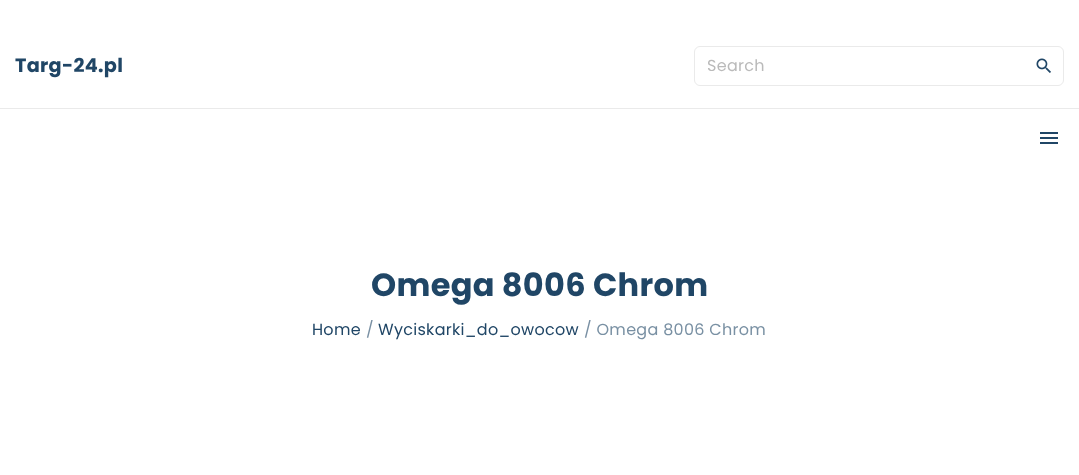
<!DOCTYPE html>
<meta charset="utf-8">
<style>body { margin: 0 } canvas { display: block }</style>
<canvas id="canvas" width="1079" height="475"></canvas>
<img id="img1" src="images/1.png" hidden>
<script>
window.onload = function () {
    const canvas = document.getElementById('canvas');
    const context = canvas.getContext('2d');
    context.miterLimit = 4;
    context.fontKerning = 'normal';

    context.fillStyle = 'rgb(255, 255, 255)';
    context.fillRect(0, 0, 1079, 475);
    context.beginPath();
    context.roundRect(694.5, 46.5, 369, 39, 5.5);
    context.strokeStyle = 'rgb(234, 234, 234)';
    context.stroke();
    context.drawImage(document.getElementById('img1'), 1036, 58, 15, 15);
    context.fillStyle = 'rgb(234, 234, 234)';
    context.fillRect(0, 108, 1079, 1);
    context.fillStyle = 'rgb(32, 70, 102)';
    context.fillRect(1040, 137, 18, 2);
    context.fillRect(1040, 132, 18, 2);
    context.fillRect(1040, 142, 18, 2);
    context.letterSpacing = '0.3px';
    context.font = 'bold 19.25px Poppins';
    context.fillText('Targ-24.pl', 15, 72);
    context.font = '16px Poppins';
    context.fillStyle = 'rgb(186, 186, 186)';
    context.fillText('Search', 707, 71);
    context.font = 'bold 32px Poppins';
    context.fillStyle = 'rgb(32, 70, 102)';
    context.fillText('Omega 8006 Chrom', 371, 296);
    context.font = '16px Poppins';
    context.fillText('Home', 312, 335);
    context.fillStyle = 'rgb(121, 144, 163)';
    context.fillText('/', 366, 335);
    context.fillStyle = 'rgb(32, 70, 102)';
    context.fillText('Wyciskarki_do_owocow', 378, 335);
    context.fillStyle = 'rgb(121, 144, 163)';
    context.fillText('/ Omega 8006 Chrom', 584, 335);
};
</script>
